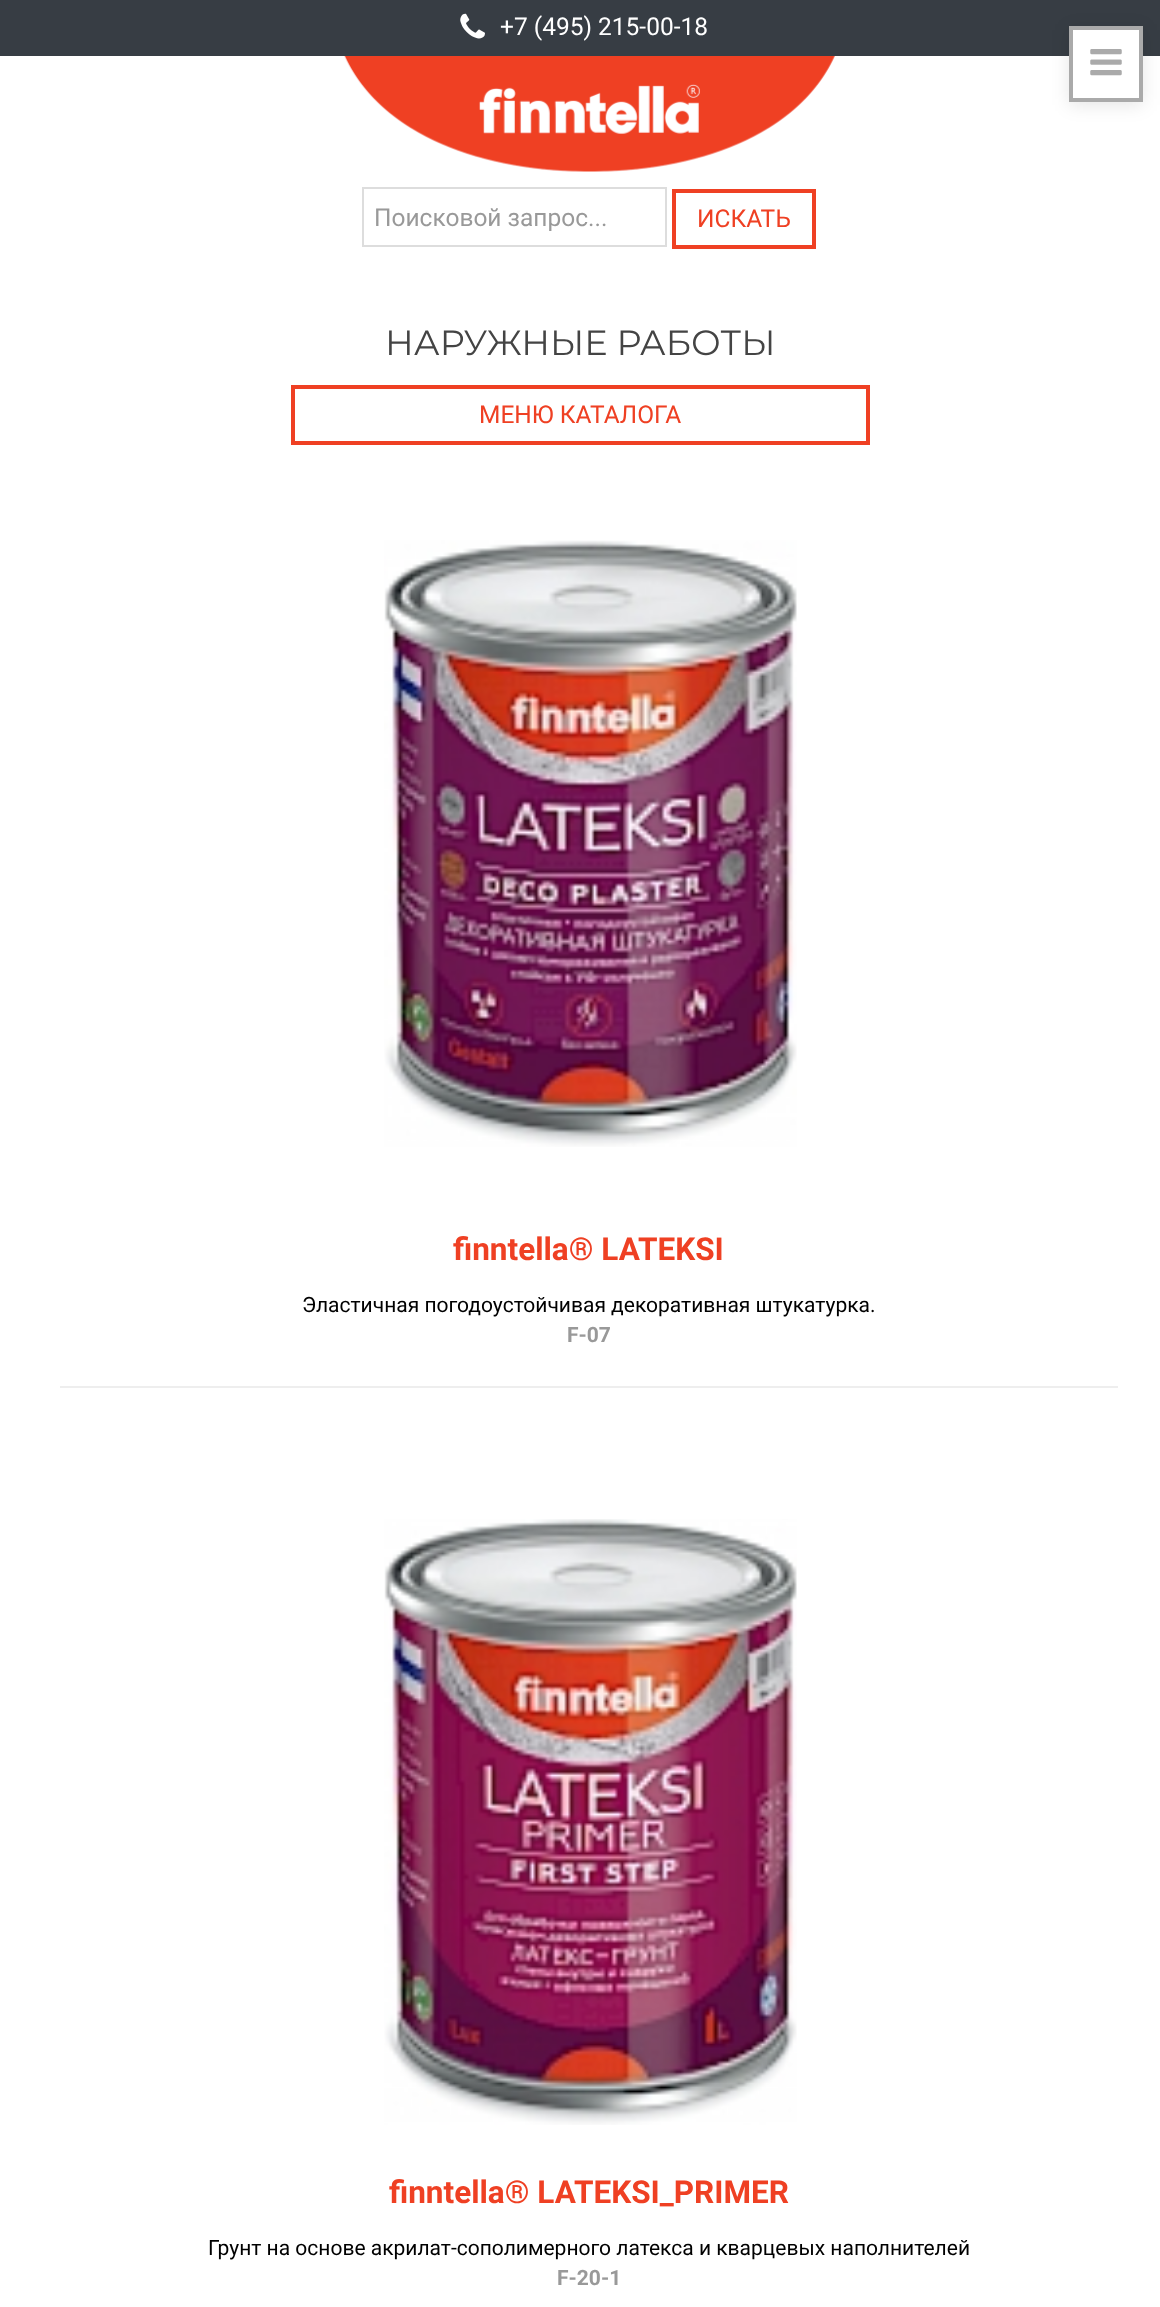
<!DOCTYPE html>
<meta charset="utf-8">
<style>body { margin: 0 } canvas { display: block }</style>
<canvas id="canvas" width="1160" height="2307"></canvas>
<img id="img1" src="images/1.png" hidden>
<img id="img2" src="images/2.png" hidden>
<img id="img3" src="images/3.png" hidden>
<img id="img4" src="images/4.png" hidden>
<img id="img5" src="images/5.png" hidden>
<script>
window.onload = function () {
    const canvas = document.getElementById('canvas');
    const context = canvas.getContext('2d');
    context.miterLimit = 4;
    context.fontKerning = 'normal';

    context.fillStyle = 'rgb(255, 255, 255)';
    context.fillRect(0, 0, 1160, 2307);
    context.fillStyle = 'rgb(55, 61, 68)';
    context.fillRect(0, 0, 1160, 56);
    context.drawImage(document.getElementById('img1'), 460, 13, 25, 26);
    context.fillStyle = 'rgba(0, 0, 0, 0.1)';
    context.filter = 'blur(9px)';
    context.beginPath();
    context.rect(1069, 30, 74, 75);
    context.fill();
    context.filter = 'none';
    context.fillStyle = 'rgb(255, 255, 255)';
    context.beginPath();
    context.rect(1071, 28, 70, 72);
    context.fill();
    context.strokeStyle = 'rgb(170, 170, 170)';
    context.lineWidth = 4;
    context.stroke();
    context.drawImage(document.getElementById('img2'), 1090, 49, 32, 27);
    context.drawImage(document.getElementById('img3'), 344, 56, 491, 116);
    context.strokeStyle = 'rgb(221, 221, 221)';
    context.lineWidth = 2;
    context.strokeRect(363, 188, 303, 58);
    context.strokeStyle = 'rgb(239, 64, 35)';
    context.lineWidth = 4;
    context.strokeRect(674, 191, 140, 56);
    context.strokeRect(293, 387, 575, 56);
    context.fillStyle = 'rgb(238, 238, 238)';
    context.fillRect(60, 1386, 1058, 2);
    context.drawImage(document.getElementById('img4'), 384, 540, 413, 607);
    context.drawImage(document.getElementById('img5'), 384, 1519, 413, 606);
    context.font = '24.5px Roboto';
    context.fillStyle = 'rgb(255, 255, 255)';
    context.fillText('+7 (495) 215-00-18', 500, 35);
    context.fillStyle = 'rgb(153, 153, 153)';
    context.fillText('Поисковой запрос...', 374, 226);
    context.fillStyle = 'rgb(239, 64, 35)';
    context.fillText('ИСКАТЬ', 697, 227);
    context.font = '35px Montserrat';
    context.fillStyle = 'rgb(68, 68, 68)';
    context.fillText('НАРУЖНЫЕ РАБОТЫ', 385, 355);
    context.font = '24.5px Roboto';
    context.fillStyle = 'rgb(239, 64, 35)';
    context.fillText('МЕНЮ КАТАЛОГА', 479, 423);
    context.font = 'bold 31.5px Roboto';
    context.fillText('finntella® LATEKSI', 453, 1260);
    context.font = '21px Roboto';
    context.fillStyle = 'rgb(0, 0, 0)';
    context.fillText('Эластичная погодоустойчивая декоративная штукатурка.', 302, 1312);
    context.font = 'bold 21px Roboto';
    context.fillStyle = 'rgb(153, 153, 153)';
    context.fillText('F-07', 567, 1342);
    context.font = 'bold 31.5px Roboto';
    context.fillStyle = 'rgb(239, 64, 35)';
    context.fillText('finntella® LATEKSI_PRIMER', 389, 2203);
    context.font = '21px Roboto';
    context.fillStyle = 'rgb(0, 0, 0)';
    context.fillText('Грунт на основе акрилат-сополимерного латекса и кварцевых наполнителей', 208, 2255);
    context.font = 'bold 21px Roboto';
    context.fillStyle = 'rgb(153, 153, 153)';
    context.fillText('F-20-1', 557, 2285);
};
</script>
